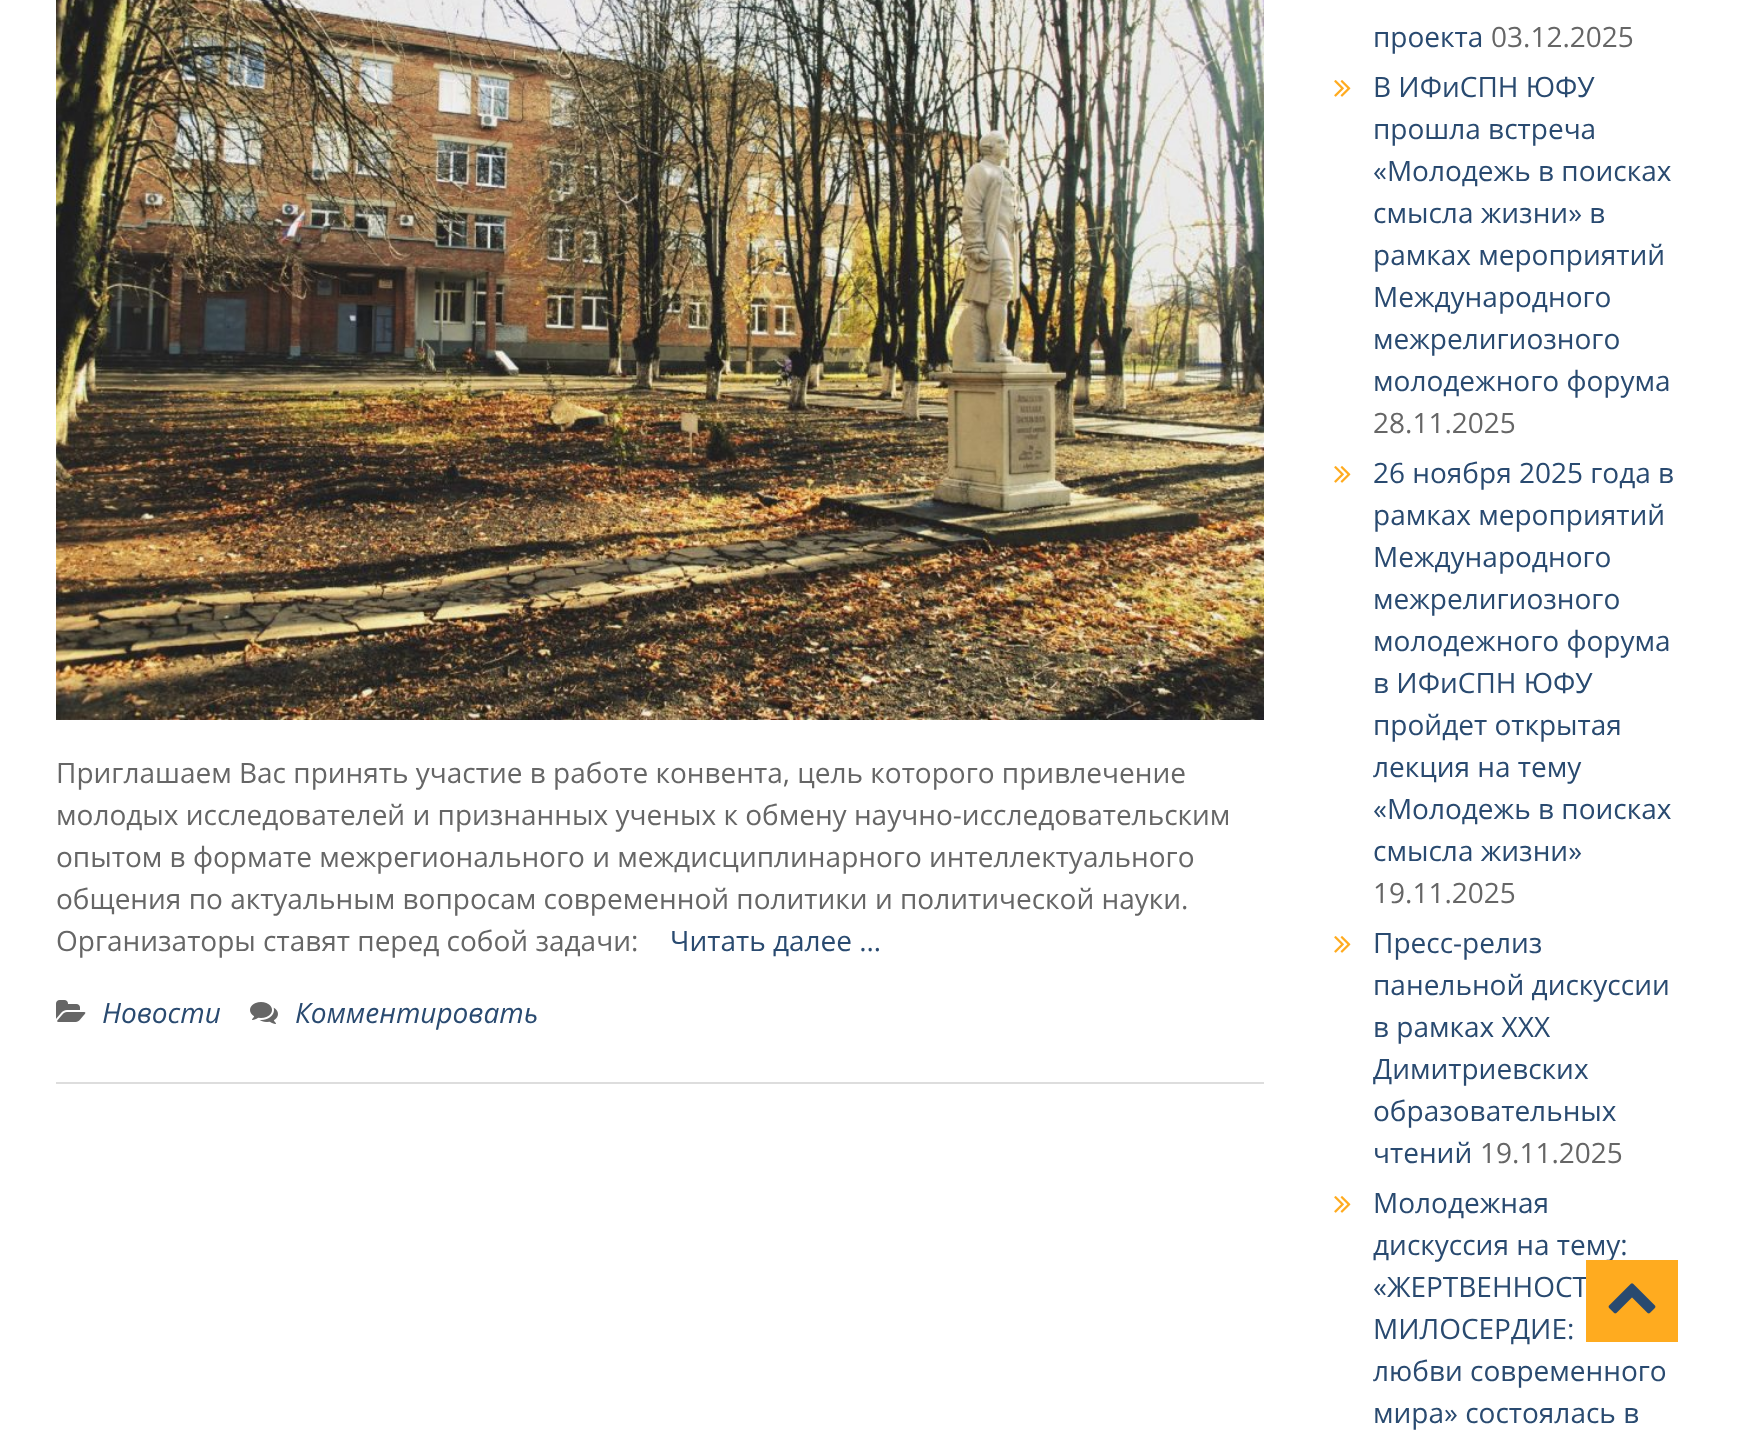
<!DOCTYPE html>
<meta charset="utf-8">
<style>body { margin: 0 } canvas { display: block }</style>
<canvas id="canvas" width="1742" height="1442"></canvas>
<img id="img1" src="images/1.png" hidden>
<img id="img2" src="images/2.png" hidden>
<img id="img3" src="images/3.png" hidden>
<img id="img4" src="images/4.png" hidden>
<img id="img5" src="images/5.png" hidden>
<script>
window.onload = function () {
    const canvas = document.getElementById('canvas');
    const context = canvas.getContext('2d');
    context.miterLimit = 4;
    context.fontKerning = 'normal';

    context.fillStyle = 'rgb(255, 255, 255)';
    context.fillRect(0, 0, 1742, 1442);
    context.fillStyle = 'rgb(221, 221, 221)';
    context.fillRect(56, 1082, 1208, 2);
    context.drawImage(document.getElementById('img1'), 56, 0, 1208, 720);
    context.drawImage(document.getElementById('img2'), 56, 1000, 30, 22);
    context.drawImage(document.getElementById('img3'), 250, 1002, 28, 22);
    context.drawImage(document.getElementById('img4'), 1334, 80, 17, 17);
    context.drawImage(document.getElementById('img4'), 1334, 466, 17, 17);
    context.drawImage(document.getElementById('img4'), 1334, 936, 17, 17);
    context.drawImage(document.getElementById('img4'), 1334, 1196, 17, 17);
    context.font = '28px Open Sans';
    context.fillStyle = 'rgb(102, 102, 102)';
    context.fillText('Приглашаем Вас принять участие в работе конвента, цель которого привлечение', 56, 783);
    context.fillText('молодых исследователей и признанных ученых к обмену научно-исследовательским', 56, 825);
    context.fillText('опытом в формате межрегионального и междисциплинарного интеллектуального', 56, 867);
    context.fillText('общения по актуальным вопросам современной политики и политической науки.', 56, 909);
    context.fillText('Организаторы ставят перед собой задачи: ', 56, 951);
    context.fillStyle = 'rgb(41, 74, 112)';
    context.fillText('Читать далее …', 670, 951);
    context.font = 'italic 28px Open Sans';
    context.fillText('Новости', 102, 1023);
    context.fillText('Комментировать', 295, 1023);
    context.font = '28px Open Sans';
    context.fillText('проекта', 1373, 47);
    context.fillStyle = 'rgb(102, 102, 102)';
    context.fillText('03.12.2025', 1491, 47);
    context.fillStyle = 'rgb(41, 74, 112)';
    context.fillText('В ИФиСПН ЮФУ', 1373, 97);
    context.fillText('прошла встреча', 1373, 139);
    context.fillText('«Молодежь в поисках', 1373, 181);
    context.fillText('смысла жизни» в', 1373, 223);
    context.fillText('рамках мероприятий', 1373, 265);
    context.fillText('Международного', 1373, 307);
    context.fillText('межрелигиозного', 1373, 349);
    context.fillText('молодежного форума', 1373, 391);
    context.fillStyle = 'rgb(102, 102, 102)';
    context.fillText('28.11.2025', 1373, 433);
    context.fillStyle = 'rgb(41, 74, 112)';
    context.fillText('26 ноября 2025 года в', 1373, 483);
    context.fillText('рамках мероприятий', 1373, 525);
    context.fillText('Международного', 1373, 567);
    context.fillText('межрелигиозного', 1373, 609);
    context.fillText('молодежного форума', 1373, 651);
    context.fillText('в ИФиСПН ЮФУ', 1373, 693);
    context.fillText('пройдет открытая', 1373, 735);
    context.fillText('лекция на тему', 1373, 777);
    context.fillText('«Молодежь в поисках', 1373, 819);
    context.fillText('смысла жизни»', 1373, 861);
    context.fillStyle = 'rgb(102, 102, 102)';
    context.fillText('19.11.2025', 1373, 903);
    context.fillStyle = 'rgb(41, 74, 112)';
    context.fillText('Пресс-релиз', 1373, 953);
    context.fillText('панельной дискуссии', 1373, 995);
    context.fillText('в рамках XXX', 1373, 1037);
    context.fillText('Димитриевских', 1373, 1079);
    context.fillText('образовательных', 1373, 1121);
    context.fillText('чтений', 1373, 1163);
    context.fillStyle = 'rgb(102, 102, 102)';
    context.fillText('19.11.2025', 1480, 1163);
    context.fillStyle = 'rgb(41, 74, 112)';
    context.fillText('Молодежная', 1373, 1213);
    context.fillText('дискуссия на тему:', 1373, 1255);
    context.fillText('«ЖЕРТВЕННОСТ', 1373, 1297);
    context.fillText('МИЛОСЕРДИЕ:', 1373, 1339);
    context.fillText('любви современного', 1373, 1381);
    context.fillText('мира» состоялась в', 1373, 1423);
    context.fillStyle = 'rgb(255, 171, 31)';
    context.fillRect(1586, 1260, 92, 82);
    context.drawImage(document.getElementById('img5'), 1608, 1283, 48, 31);
};
</script>
